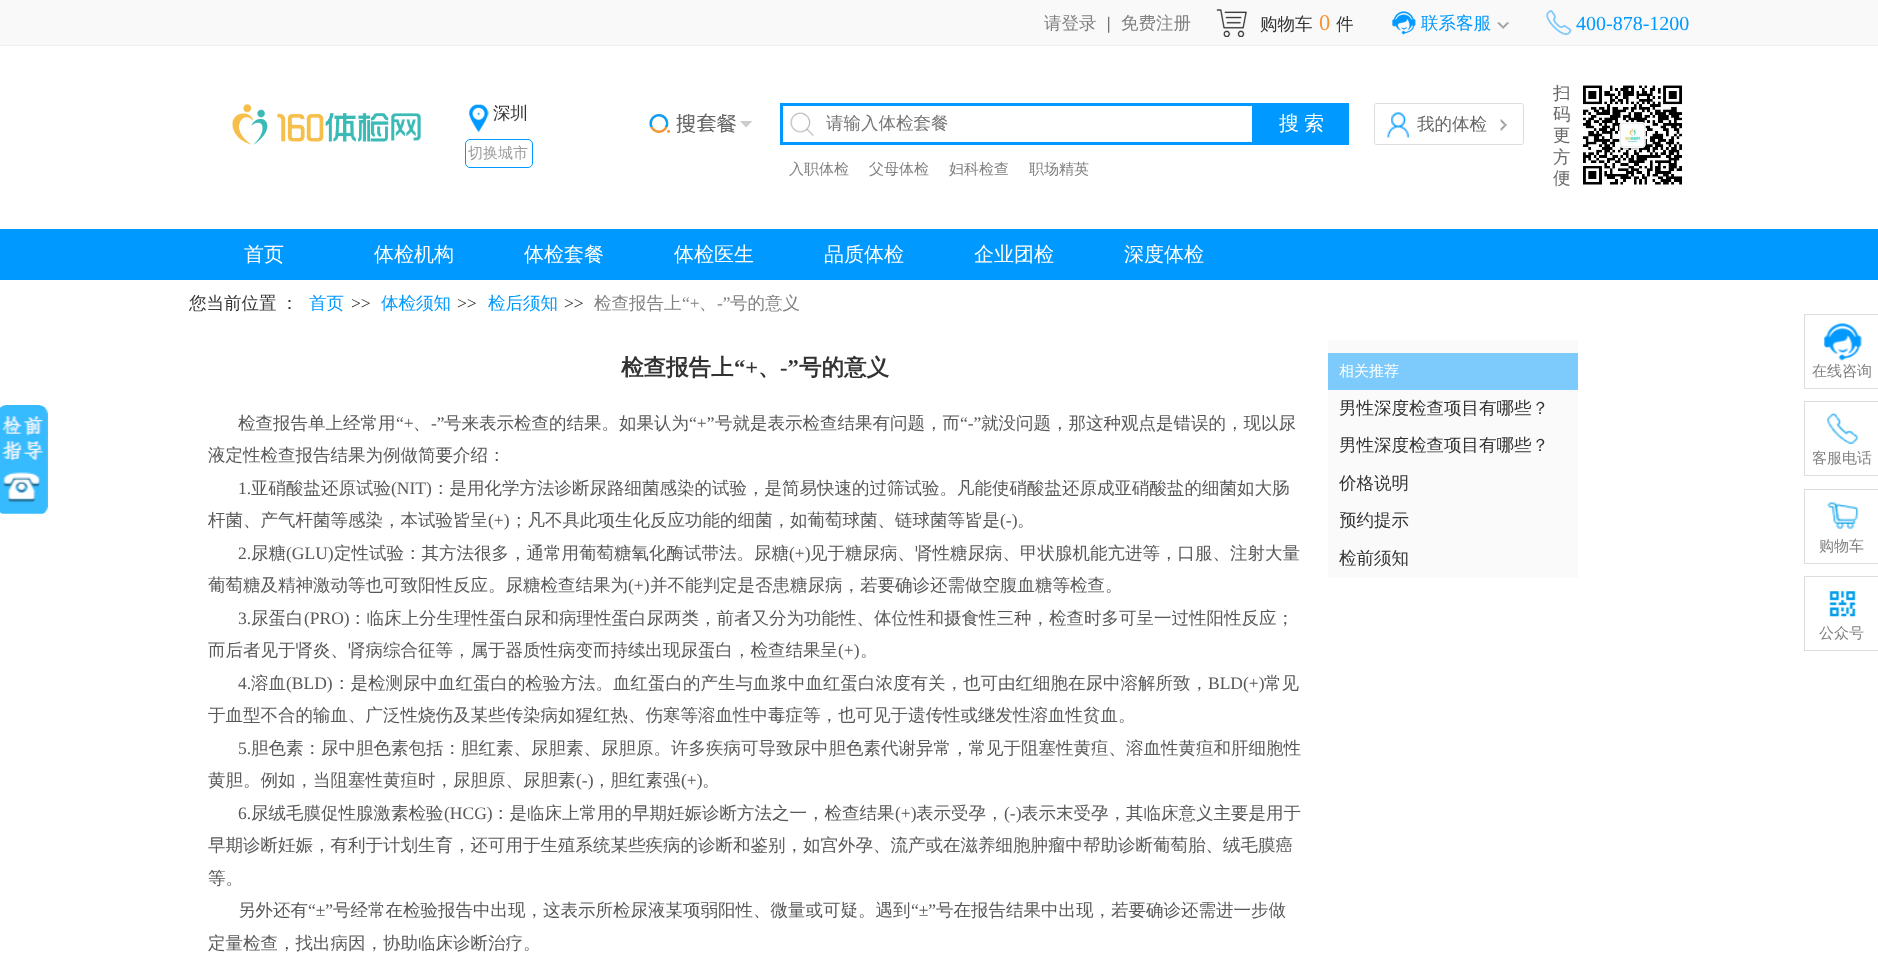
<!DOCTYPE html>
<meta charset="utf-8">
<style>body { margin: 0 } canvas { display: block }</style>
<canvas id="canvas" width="1878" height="976"></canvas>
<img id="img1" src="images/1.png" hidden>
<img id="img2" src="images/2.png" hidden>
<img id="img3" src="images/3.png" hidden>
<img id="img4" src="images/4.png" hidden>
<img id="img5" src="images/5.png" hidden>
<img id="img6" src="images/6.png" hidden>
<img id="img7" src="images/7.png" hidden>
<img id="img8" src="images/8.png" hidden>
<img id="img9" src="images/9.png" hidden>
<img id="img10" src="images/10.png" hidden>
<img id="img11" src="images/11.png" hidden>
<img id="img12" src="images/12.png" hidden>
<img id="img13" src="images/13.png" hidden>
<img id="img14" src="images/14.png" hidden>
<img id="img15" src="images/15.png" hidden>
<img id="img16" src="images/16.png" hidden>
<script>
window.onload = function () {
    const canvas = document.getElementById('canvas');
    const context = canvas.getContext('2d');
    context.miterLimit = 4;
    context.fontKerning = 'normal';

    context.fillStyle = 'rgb(255, 255, 255)';
    context.fillRect(0, 0, 1878, 976);
    context.fillStyle = 'rgb(249, 249, 249)';
    context.fillRect(0, 0, 1878, 45);
    context.fillStyle = 'rgb(239, 239, 239)';
    context.fillRect(0, 45, 1878, 1);
    context.drawImage(document.getElementById('img1'), 1216, 9, 31, 28);
    context.drawImage(document.getElementById('img2'), 1392, 11, 24, 24);
    context.drawImage(document.getElementById('img3'), 1497, 22, 12, 7);
    context.drawImage(document.getElementById('img4'), 1546, 10, 26, 25);
    context.drawImage(document.getElementById('img5'), 232, 104, 189, 41);
    context.drawImage(document.getElementById('img6'), 469, 104, 20, 28);
    context.beginPath();
    context.roundRect(465.5, 139.5, 67, 28, 4.5);
    context.strokeStyle = 'rgb(0, 153, 255)';
    context.stroke();
    context.drawImage(document.getElementById('img7'), 649, 113, 87, 20);
    context.fillStyle = 'rgb(204, 204, 204)';
    context.beginPath();
    context.moveTo(740, 121);
    context.lineTo(752.5, 121);
    context.lineTo(746, 127.5);
    context.closePath();
    context.fill();
    context.lineWidth = 3;
    context.strokeRect(781.5, 104.5, 472, 39);
    context.drawImage(document.getElementById('img8'), 790, 112, 24, 24);
    context.fillStyle = 'rgb(0, 153, 255)';
    context.fillRect(1255, 103, 94, 42);
    context.drawImage(document.getElementById('img9'), 1387, 112, 22, 26);
    context.beginPath();
    context.roundRect(1374.5, 103.5, 149, 41, 2);
    context.strokeStyle = 'rgb(221, 221, 221)';
    context.lineWidth = 1;
    context.stroke();
    context.drawImage(document.getElementById('img10'), 1500, 119, 7, 12);
    context.drawImage(document.getElementById('img11'), 1583, 85, 99, 100);
    context.fillRect(0, 229, 1878, 51);
    context.drawImage(document.getElementById('img12'), 0, 405, 48, 109);
    context.fillStyle = 'rgb(250, 250, 250)';
    context.fillRect(1328, 340, 250, 238);
    context.fillStyle = 'rgb(125, 202, 253)';
    context.fillRect(1328, 353, 250, 37);
    context.fillStyle = 'rgb(221, 221, 221)';
    context.fillRect(1804, 314, 74, 1);
    context.fillRect(1804, 388, 74, 1);
    context.fillRect(1804, 314, 1, 75);
    context.drawImage(document.getElementById('img13'), 1824, 323, 39, 38);
    context.fillRect(1804, 401, 74, 1);
    context.fillRect(1804, 475, 74, 1);
    context.fillRect(1804, 401, 1, 75);
    context.drawImage(document.getElementById('img14'), 1827, 413, 32, 31);
    context.fillRect(1804, 489, 74, 1);
    context.fillRect(1804, 563, 74, 1);
    context.fillRect(1804, 489, 1, 75);
    context.drawImage(document.getElementById('img15'), 1827, 502, 32, 27);
    context.fillRect(1804, 576, 74, 1);
    context.fillRect(1804, 650, 74, 1);
    context.fillRect(1804, 576, 1, 75);
    context.drawImage(document.getElementById('img16'), 1829, 591, 27, 26);
    context.font = '500 17.5px WenQuanYi Zen Hei';
    context.fillStyle = 'rgb(129, 129, 129)';
    context.fillText('请登录', 1044, 29);
    context.font = '17.5px Liberation Serif';
    context.fillStyle = 'rgb(51, 51, 51)';
    context.fillText('|', 1107, 29);
    context.font = '500 17.5px WenQuanYi Zen Hei';
    context.fillStyle = 'rgb(129, 129, 129)';
    context.fillText('免费注册', 1121, 29);
    context.fillStyle = 'rgb(51, 51, 51)';
    context.fillText('购物车', 1260, 30);
    context.font = '22.5px Liberation Serif';
    context.fillStyle = 'rgb(243, 150, 49)';
    context.fillText('0', 1319, 30);
    context.font = '500 17.5px WenQuanYi Zen Hei';
    context.fillStyle = 'rgb(51, 51, 51)';
    context.fillText('件', 1336, 30);
    context.fillStyle = 'rgb(0, 153, 255)';
    context.fillText('联系客服', 1421, 29);
    context.font = '20px Liberation Serif';
    context.fillText('400-878-1200', 1576, 30);
    context.font = '500 17.5px WenQuanYi Zen Hei';
    context.fillStyle = 'rgb(51, 51, 51)';
    context.fillText('深圳', 493, 119);
    context.font = '500 15px WenQuanYi Zen Hei';
    context.fillStyle = 'rgb(157, 157, 157)';
    context.fillText('切换城市', 468, 158);
    context.font = '500 17.5px WenQuanYi Zen Hei';
    context.fillStyle = 'rgb(117, 117, 117)';
    context.fillText('请输入体检套餐', 826, 129);
    context.wordSpacing = '-1px';
    context.font = '500 20px WenQuanYi Zen Hei';
    context.fillStyle = 'rgb(255, 255, 255)';
    context.fillText('搜 索', 1279, 130);
    context.wordSpacing = '0px';
    context.font = '500 15px WenQuanYi Zen Hei';
    context.fillStyle = 'rgb(129, 129, 129)';
    context.fillText('入职体检', 789, 174);
    context.fillText('父母体检', 869, 174);
    context.fillText('妇科检查', 949, 174);
    context.fillText('职场精英', 1029, 174);
    context.font = '500 17.5px WenQuanYi Zen Hei';
    context.fillStyle = 'rgb(102, 102, 102)';
    context.fillText('我的体检', 1417, 130);
    context.fillText('扫', 1553, 99);
    context.fillText('码', 1553, 120);
    context.fillText('更', 1553, 141);
    context.fillText('方', 1553, 163);
    context.fillText('便', 1553, 184);
    context.font = '500 20px WenQuanYi Zen Hei';
    context.fillStyle = 'rgb(255, 255, 255)';
    context.fillText('首页', 244, 261);
    context.fillText('体检机构', 374, 261);
    context.fillText('体检套餐', 524, 261);
    context.fillText('体检医生', 674, 261);
    context.fillText('品质体检', 824, 261);
    context.fillText('企业团检', 974, 261);
    context.fillText('深度体检', 1124, 261);
    context.wordSpacing = '-1px';
    context.font = '500 17.5px WenQuanYi Zen Hei';
    context.fillStyle = 'rgb(51, 51, 51)';
    context.fillText('您当前位置 ：', 189, 309);
    context.wordSpacing = '0px';
    context.fillStyle = 'rgb(0, 153, 255)';
    context.fillText('首页', 309, 309);
    context.font = '17.5px Liberation Serif';
    context.fillStyle = 'rgb(51, 51, 51)';
    context.fillText('>>', 351, 309);
    context.font = '500 17.5px WenQuanYi Zen Hei';
    context.fillStyle = 'rgb(0, 153, 255)';
    context.fillText('体检须知', 381, 309);
    context.font = '17.5px Liberation Serif';
    context.fillStyle = 'rgb(51, 51, 51)';
    context.fillText('>>', 457, 309);
    context.font = '500 17.5px WenQuanYi Zen Hei';
    context.fillStyle = 'rgb(0, 153, 255)';
    context.fillText('检后须知', 488, 309);
    context.font = '17.5px Liberation Serif';
    context.fillStyle = 'rgb(51, 51, 51)';
    context.fillText('>>', 564, 309);
    context.font = '500 17.5px WenQuanYi Zen Hei';
    context.fillStyle = 'rgb(129, 129, 129)';
    context.fillText('检查报告上', 594, 309);
    context.font = '17.5px Liberation Serif';
    context.fillText('“+', 682, 309);
    context.fillText('-”', 717, 309);
    context.font = '500 17.5px WenQuanYi Zen Hei';
    context.fillText('号的意义', 730, 309);
    context.fillText('、', 699, 309);
    context.font = 'bold 22.5px WenQuanYi Zen Hei';
    context.fillStyle = 'rgb(51, 51, 51)';
    context.fillText('检查报告上', 621, 375);
    context.font = 'bold 22.5px Liberation Serif';
    context.fillText('“+', 734, 375);
    context.fillText('-”', 780, 375);
    context.font = 'bold 22.5px WenQuanYi Zen Hei';
    context.fillText('号的意义', 799, 375);
    context.fillText('、', 758, 375);
    context.font = '500 17.5px WenQuanYi Zen Hei';
    context.fillStyle = 'rgb(88, 88, 88)';
    context.fillText('检查报告单上经常用', 238, 429);
    context.font = '17.5px Liberation Serif';
    context.fillText('“+', 396, 429);
    context.fillText('-”', 431, 429);
    context.font = '500 17.5px WenQuanYi Zen Hei';
    context.fillText('号来表示检查的结果。如果认为', 444, 429);
    context.font = '17.5px Liberation Serif';
    context.fillText('“+”', 689, 429);
    context.font = '500 17.5px WenQuanYi Zen Hei';
    context.fillText('号就是表示检查结果有问题，而', 715, 429);
    context.font = '17.5px Liberation Serif';
    context.fillText('“-”', 960, 429);
    context.font = '500 17.5px WenQuanYi Zen Hei';
    context.fillText('就没问题，那这种观点是错误的，现以尿', 981, 429);
    context.fillText('、', 413, 429);
    context.fillText('液定性检查报告结果为例做简要介绍：', 208, 461);
    context.font = '17.5px Liberation Serif';
    context.fillText('1.', 238, 494);
    context.font = '500 17.5px WenQuanYi Zen Hei';
    context.fillText('亚硝酸盐还原试验', 251, 494);
    context.font = '17.5px Liberation Serif';
    context.fillText('(NIT)', 391, 494);
    context.font = '500 17.5px WenQuanYi Zen Hei';
    context.fillText('：是用化学方法诊断尿路细菌感染的试验，是简易快速的过筛试验。凡能使硝酸盐还原成亚硝酸盐的细菌如大肠', 432, 494);
    context.fillText('杆菌、产气杆菌等感染，本试验皆呈', 208, 526);
    context.font = '17.5px Liberation Serif';
    context.fillText('(+)', 488, 526);
    context.font = '500 17.5px WenQuanYi Zen Hei';
    context.fillText('；凡不具此项生化反应功能的细菌，如葡萄球菌、链球菌等皆是', 510, 526);
    context.font = '17.5px Liberation Serif';
    context.fillText('(-)', 1000, 526);
    context.font = '500 17.5px WenQuanYi Zen Hei';
    context.fillText('。', 1017, 526);
    context.font = '17.5px Liberation Serif';
    context.fillText('2.', 238, 559);
    context.font = '500 17.5px WenQuanYi Zen Hei';
    context.fillText('尿糖', 251, 559);
    context.font = '17.5px Liberation Serif';
    context.fillText('(GLU)', 286, 559);
    context.font = '500 17.5px WenQuanYi Zen Hei';
    context.fillText('定性试验：其方法很多，通常用葡萄糖氧化酶试带法。尿糖', 334, 559);
    context.font = '17.5px Liberation Serif';
    context.fillText('(+)', 789, 559);
    context.font = '500 17.5px WenQuanYi Zen Hei';
    context.fillText('见于糖尿病、肾性糖尿病、甲状腺机能亢进等，口服、注射大量', 810, 559);
    context.fillText('葡萄糖及精神激动等也可致阳性反应。尿糖检查结果为', 208, 591);
    context.font = '17.5px Liberation Serif';
    context.fillText('(+)', 628, 591);
    context.font = '500 17.5px WenQuanYi Zen Hei';
    context.fillText('并不能判定是否患糖尿病，若要确诊还需做空腹血糖等检查。', 650, 591);
    context.font = '17.5px Liberation Serif';
    context.fillText('3.', 238, 624);
    context.font = '500 17.5px WenQuanYi Zen Hei';
    context.fillText('尿蛋白', 251, 624);
    context.font = '17.5px Liberation Serif';
    context.fillText('(PRO)', 304, 624);
    context.font = '500 17.5px WenQuanYi Zen Hei';
    context.fillText('：临床上分生理性蛋白尿和病理性蛋白尿两类，前者又分为功能性、体位性和摄食性三种，检查时多可呈一过性阳性反应；', 349, 624);
    context.fillText('而后者见于肾炎、肾病综合征等，属于器质性病变而持续出现尿蛋白，检查结果呈', 208, 656);
    context.font = '17.5px Liberation Serif';
    context.fillText('(+)', 838, 656);
    context.font = '500 17.5px WenQuanYi Zen Hei';
    context.fillText('。', 860, 656);
    context.font = '17.5px Liberation Serif';
    context.fillText('4.', 238, 689);
    context.font = '500 17.5px WenQuanYi Zen Hei';
    context.fillText('溶血', 251, 689);
    context.font = '17.5px Liberation Serif';
    context.fillText('(BLD)', 286, 689);
    context.font = '500 17.5px WenQuanYi Zen Hei';
    context.fillText('：是检测尿中血红蛋白的检验方法。血红蛋白的产生与血浆中血红蛋白浓度有关，也可由红细胞在尿中溶解所致，', 333, 689);
    context.font = '17.5px Liberation Serif';
    context.fillText('BLD(+)', 1208, 689);
    context.font = '500 17.5px WenQuanYi Zen Hei';
    context.fillText('常见', 1264, 689);
    context.fillText('于血型不合的输血、广泛性烧伤及某些传染病如猩红热、伤寒等溶血性中毒症等，也可见于遗传性或继发性溶血性贫血。', 208, 721);
    context.font = '17.5px Liberation Serif';
    context.fillText('5.', 238, 754);
    context.font = '500 17.5px WenQuanYi Zen Hei';
    context.fillText('胆色素：尿中胆色素包括：胆红素、尿胆素、尿胆原。许多疾病可导致尿中胆色素代谢异常，常见于阻塞性黄疸、溶血性黄疸和肝细胞性', 251, 754);
    context.fillText('黄胆。例如，当阻塞性黄疸时，尿胆原、尿胆素', 208, 786);
    context.font = '17.5px Liberation Serif';
    context.fillText('(-)', 576, 786);
    context.font = '500 17.5px WenQuanYi Zen Hei';
    context.fillText('，胆红素强', 593, 786);
    context.font = '17.5px Liberation Serif';
    context.fillText('(+)', 681, 786);
    context.font = '500 17.5px WenQuanYi Zen Hei';
    context.fillText('。', 702, 786);
    context.font = '17.5px Liberation Serif';
    context.fillText('6.', 238, 819);
    context.font = '500 17.5px WenQuanYi Zen Hei';
    context.fillText('尿绒毛膜促性腺激素检验', 251, 819);
    context.font = '17.5px Liberation Serif';
    context.fillText('(HCG)', 444, 819);
    context.font = '500 17.5px WenQuanYi Zen Hei';
    context.fillText('：是临床上常用的早期妊娠诊断方法之一，检查结果', 492, 819);
    context.font = '17.5px Liberation Serif';
    context.fillText('(+)', 895, 819);
    context.font = '500 17.5px WenQuanYi Zen Hei';
    context.fillText('表示受孕，', 916, 819);
    context.font = '17.5px Liberation Serif';
    context.fillText('(-)', 1004, 819);
    context.font = '500 17.5px WenQuanYi Zen Hei';
    context.fillText('表示末受孕，其临床意义主要是用于', 1021, 819);
    context.fillText('早期诊断妊娠，有利于计划生育，还可用于生殖系统某些疾病的诊断和鉴别，如宫外孕、流产或在滋养细胞肿瘤中帮助诊断葡萄胎、绒毛膜癌', 208, 851);
    context.fillText('等。', 208, 884);
    context.fillText('另外还有', 238, 916);
    context.font = '17.5px Liberation Serif';
    context.fillText('“±”', 308, 916);
    context.font = '500 17.5px WenQuanYi Zen Hei';
    context.fillText('号经常在检验报告中出现，这表示所检尿液某项弱阳性、微量或可疑。遇到', 333, 916);
    context.font = '17.5px Liberation Serif';
    context.fillText('“±”', 911, 916);
    context.font = '500 17.5px WenQuanYi Zen Hei';
    context.fillText('号在报告结果中出现，若要确诊还需进一步做', 936, 916);
    context.fillText('定量检查，找出病因，协助临床诊断治疗。', 208, 949);
    context.font = '500 15px WenQuanYi Zen Hei';
    context.fillStyle = 'rgb(255, 255, 255)';
    context.fillText('相关推荐', 1339, 376);
    context.font = '500 17.5px WenQuanYi Zen Hei';
    context.fillStyle = 'rgb(51, 51, 51)';
    context.fillText('男性深度检查项目有哪些？', 1339, 414);
    context.fillText('男性深度检查项目有哪些？', 1339, 451);
    context.fillText('价格说明', 1339, 489);
    context.save();
    context.beginPath();
    context.rect(1340, 503, 238, 37);
    context.clip();
    context.fillText('预约提示', 1339, 526);
    context.restore();
    context.fillText('检前须知', 1339, 564);
    context.font = '500 15px WenQuanYi Zen Hei';
    context.fillStyle = 'rgb(129, 129, 129)';
    context.fillText('在线咨询', 1812, 376);
    context.fillText('客服电话', 1812, 463);
    context.fillText('购物车', 1819, 551);
    context.fillText('公众号', 1819, 638);
};
</script>
